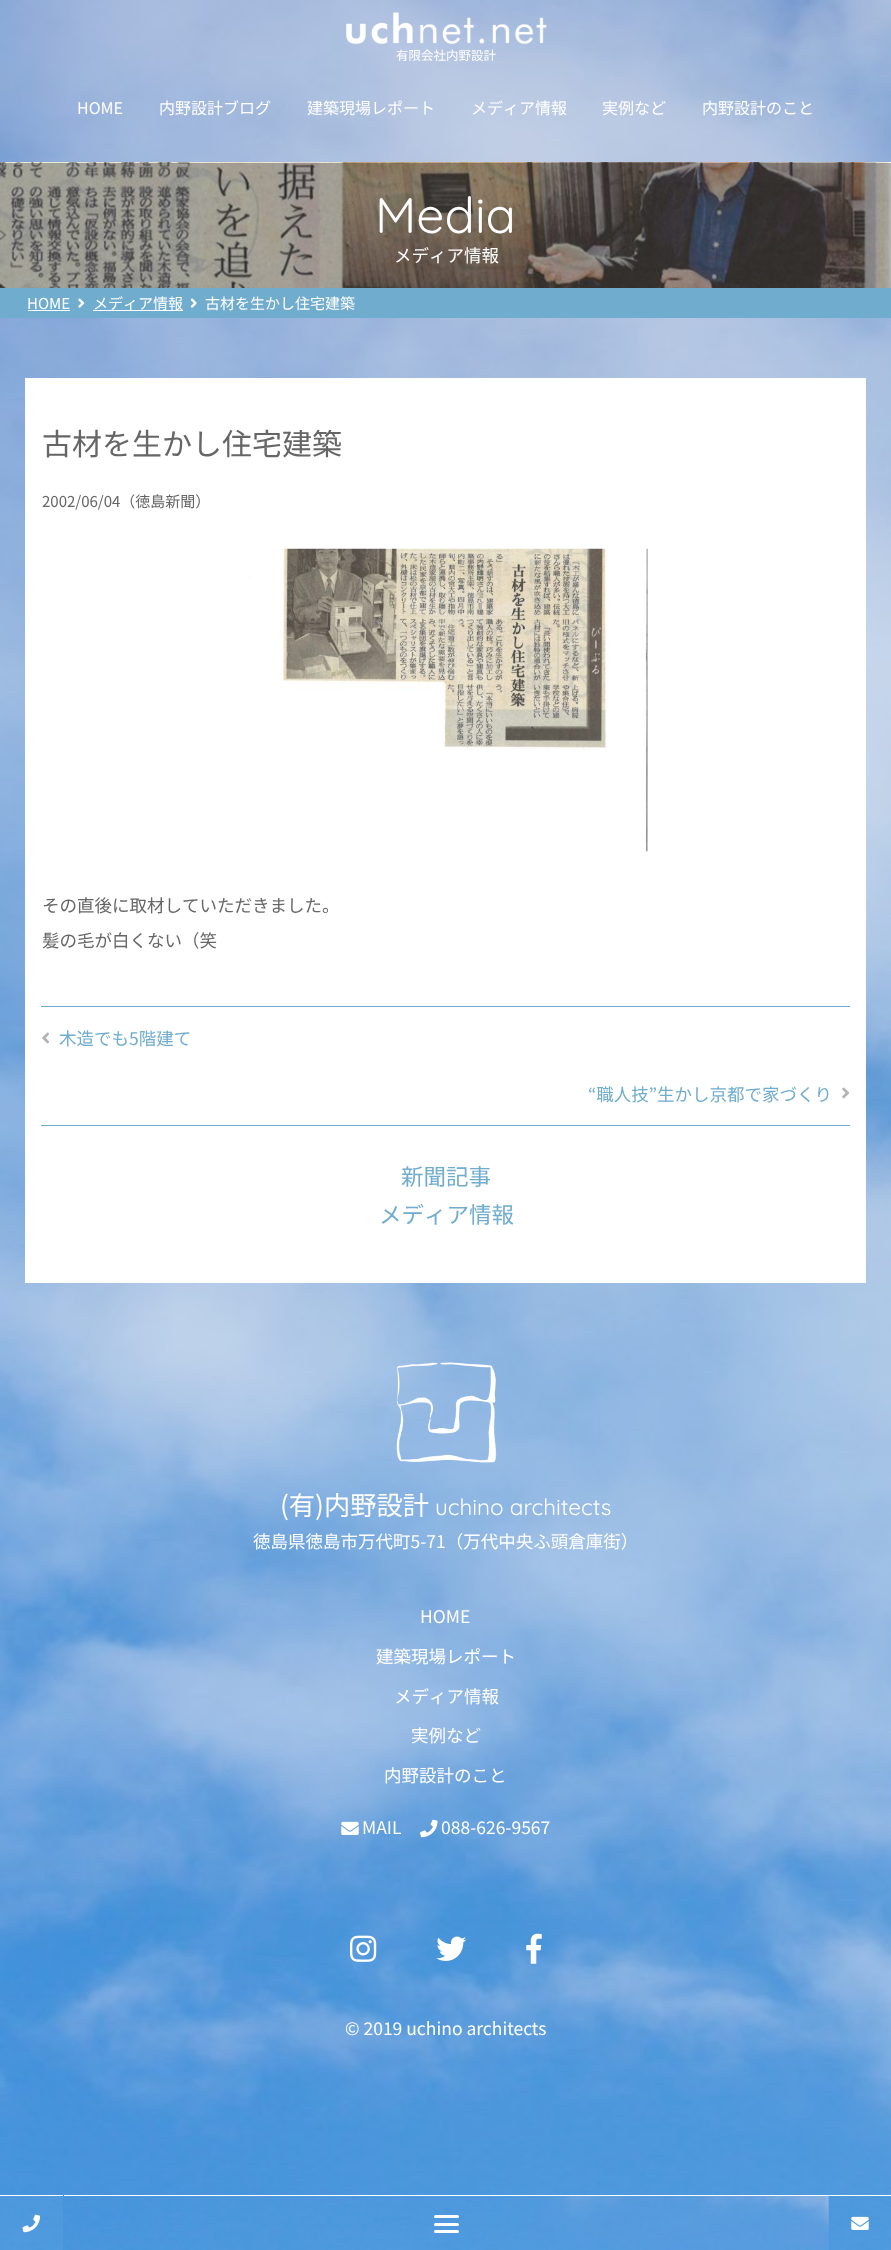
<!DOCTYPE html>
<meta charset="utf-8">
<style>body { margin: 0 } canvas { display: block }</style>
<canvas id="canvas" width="891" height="2250"></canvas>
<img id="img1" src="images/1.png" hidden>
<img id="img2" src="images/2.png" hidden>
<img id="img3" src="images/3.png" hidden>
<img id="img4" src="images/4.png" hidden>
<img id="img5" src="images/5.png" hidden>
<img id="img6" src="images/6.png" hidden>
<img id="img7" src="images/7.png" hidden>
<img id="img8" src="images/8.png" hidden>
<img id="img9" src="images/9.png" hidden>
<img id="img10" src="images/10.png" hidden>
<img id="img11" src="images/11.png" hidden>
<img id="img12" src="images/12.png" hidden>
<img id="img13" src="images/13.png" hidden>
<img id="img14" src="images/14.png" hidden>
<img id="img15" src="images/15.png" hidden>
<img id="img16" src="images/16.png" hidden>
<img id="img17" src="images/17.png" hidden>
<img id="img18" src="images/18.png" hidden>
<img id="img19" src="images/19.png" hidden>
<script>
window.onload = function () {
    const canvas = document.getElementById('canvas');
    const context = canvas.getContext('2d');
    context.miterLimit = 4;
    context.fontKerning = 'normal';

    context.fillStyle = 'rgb(255, 255, 255)';
    context.fillRect(0, 0, 891, 2250);
    context.drawImage(document.getElementById('img1'), 0, 0, 891, 2250);
    context.drawImage(document.getElementById('img2'), 346, 12, 201, 32);
    context.drawImage(document.getElementById('img3'), 0, 2196, 63, 54);
    context.fillRect(0, 2195, 63, 1);
    context.drawImage(document.getElementById('img4'), 22, 2214, 18, 19);
    context.drawImage(document.getElementById('img5'), 64, 2196, 765, 54);
    context.fillRect(64, 2195, 766, 1);
    context.beginPath();
    context.roundRect(434, 2215, 25, 3, 1.5);
    context.fill();
    context.beginPath();
    context.roundRect(434, 2230, 25, 3, 1.5);
    context.fill();
    context.beginPath();
    context.roundRect(434, 2223, 25, 3, 1.5);
    context.fill();
    context.drawImage(document.getElementById('img6'), 828, 2195, 63, 55);
    context.fillRect(829, 2195, 62, 1);
    context.drawImage(document.getElementById('img7'), 851, 2216, 18, 14);
    context.drawImage(document.getElementById('img8'), 0, 162, 891, 126);
    context.fillStyle = 'rgb(112, 172, 205)';
    context.fillRect(0, 288, 891, 30);
    context.fillStyle = 'rgb(255, 255, 255)';
    context.fillRect(28, 310, 42, 1);
    context.drawImage(document.getElementById('img9'), 78, 298, 7, 10);
    context.fillRect(93, 310, 90, 1);
    context.drawImage(document.getElementById('img10'), 190, 298, 7, 10);
    context.fillRect(25, 378, 841, 905);
    context.drawImage(document.getElementById('img11'), 249, 548, 399, 304);
    context.fillStyle = 'rgb(112, 172, 205)';
    context.fillRect(41, 1006, 809, 1);
    context.fillRect(41, 1125, 809, 1);
    context.drawImage(document.getElementById('img12'), 42, 1032, 7, 12);
    context.drawImage(document.getElementById('img13'), 842, 1087, 7, 12);
    context.drawImage(document.getElementById('img14'), 396, 1362, 101, 101);
    context.drawImage(document.getElementById('img15'), 341, 1821, 18, 14);
    context.drawImage(document.getElementById('img16'), 420, 1819, 18, 19);
    context.drawImage(document.getElementById('img17'), 350, 1935, 27, 27);
    context.drawImage(document.getElementById('img18'), 436, 1936, 31, 25);
    context.drawImage(document.getElementById('img19'), 526, 1933, 16, 31);
    context.font = '100 12.5px Noto Sans JP';
    context.fillStyle = 'rgb(255, 255, 255)';
    context.fillText('有限会社内野設計', 396, 60);
    context.font = '100 16px Noto Sans JP';
    context.fillText('HOME', 77, 114);
    context.fillText('内野設計ブログ', 159, 114);
    context.fillText('建築現場レポート', 307, 114);
    context.fillText('メディア情報', 471, 114);
    context.fillText('実例など', 602, 114);
    context.fillText('内野設計のこと', 702, 114);
    context.font = '300 50px Quicksand';
    context.fillText('Media', 375, 233);
    context.font = '100 17.5px Noto Sans JP';
    context.fillText('メディア情報', 394, 262);
    context.font = '100 15px Noto Sans JP';
    context.fillText('HOME', 27, 309);
    context.fillText('メディア情報', 93, 309);
    context.fillText('古材を生かし住宅建築', 205, 309);
    context.font = '100 30px Noto Sans JP';
    context.fillStyle = 'rgb(102, 102, 102)';
    context.fillText('古材を生かし住宅建築', 42, 455);
    context.font = '100 15px Noto Sans JP';
    context.fillText('2002/06/04（徳島新聞）', 42, 507);
    context.font = '100 17.5px Noto Sans JP';
    context.fillText('その直後に取材していただきました。', 42, 912);
    context.fillText('髪の毛が白くない（笑', 42, 947);
    context.fillStyle = 'rgb(112, 172, 205)';
    context.fillText('木造でも5階建て', 59, 1045);
    context.fillText('“職人技”生かし京都で家づくり', 588, 1101);
    context.font = '100 22.5px Noto Sans JP';
    context.fillText('新聞記事', 401, 1185);
    context.fillText('メディア情報', 379, 1223);
    context.font = '100 26.25px Noto Sans JP';
    context.fillStyle = 'rgb(255, 255, 255)';
    context.fillText('(有)内野設計', 280, 1515);
    context.font = '300 22.5px Quicksand';
    context.fillText('uchino architects', 435, 1515);
    context.font = '100 17.5px Noto Sans JP';
    context.fillText('徳島県徳島市万代町5-71（万代中央ふ頭倉庫街）', 253, 1548);
    context.fillText('HOME', 420, 1623);
    context.fillText('建築現場レポート', 376, 1663);
    context.fillText('メディア情報', 394, 1703);
    context.fillText('実例など', 411, 1742);
    context.fillText('内野設計のこと', 384, 1782);
    context.fillText('MAIL', 362, 1834);
    context.fillText('088-626-9567', 441, 1834);
    context.fillText('© 2019 uchino architects', 345, 2035);
};
</script>
